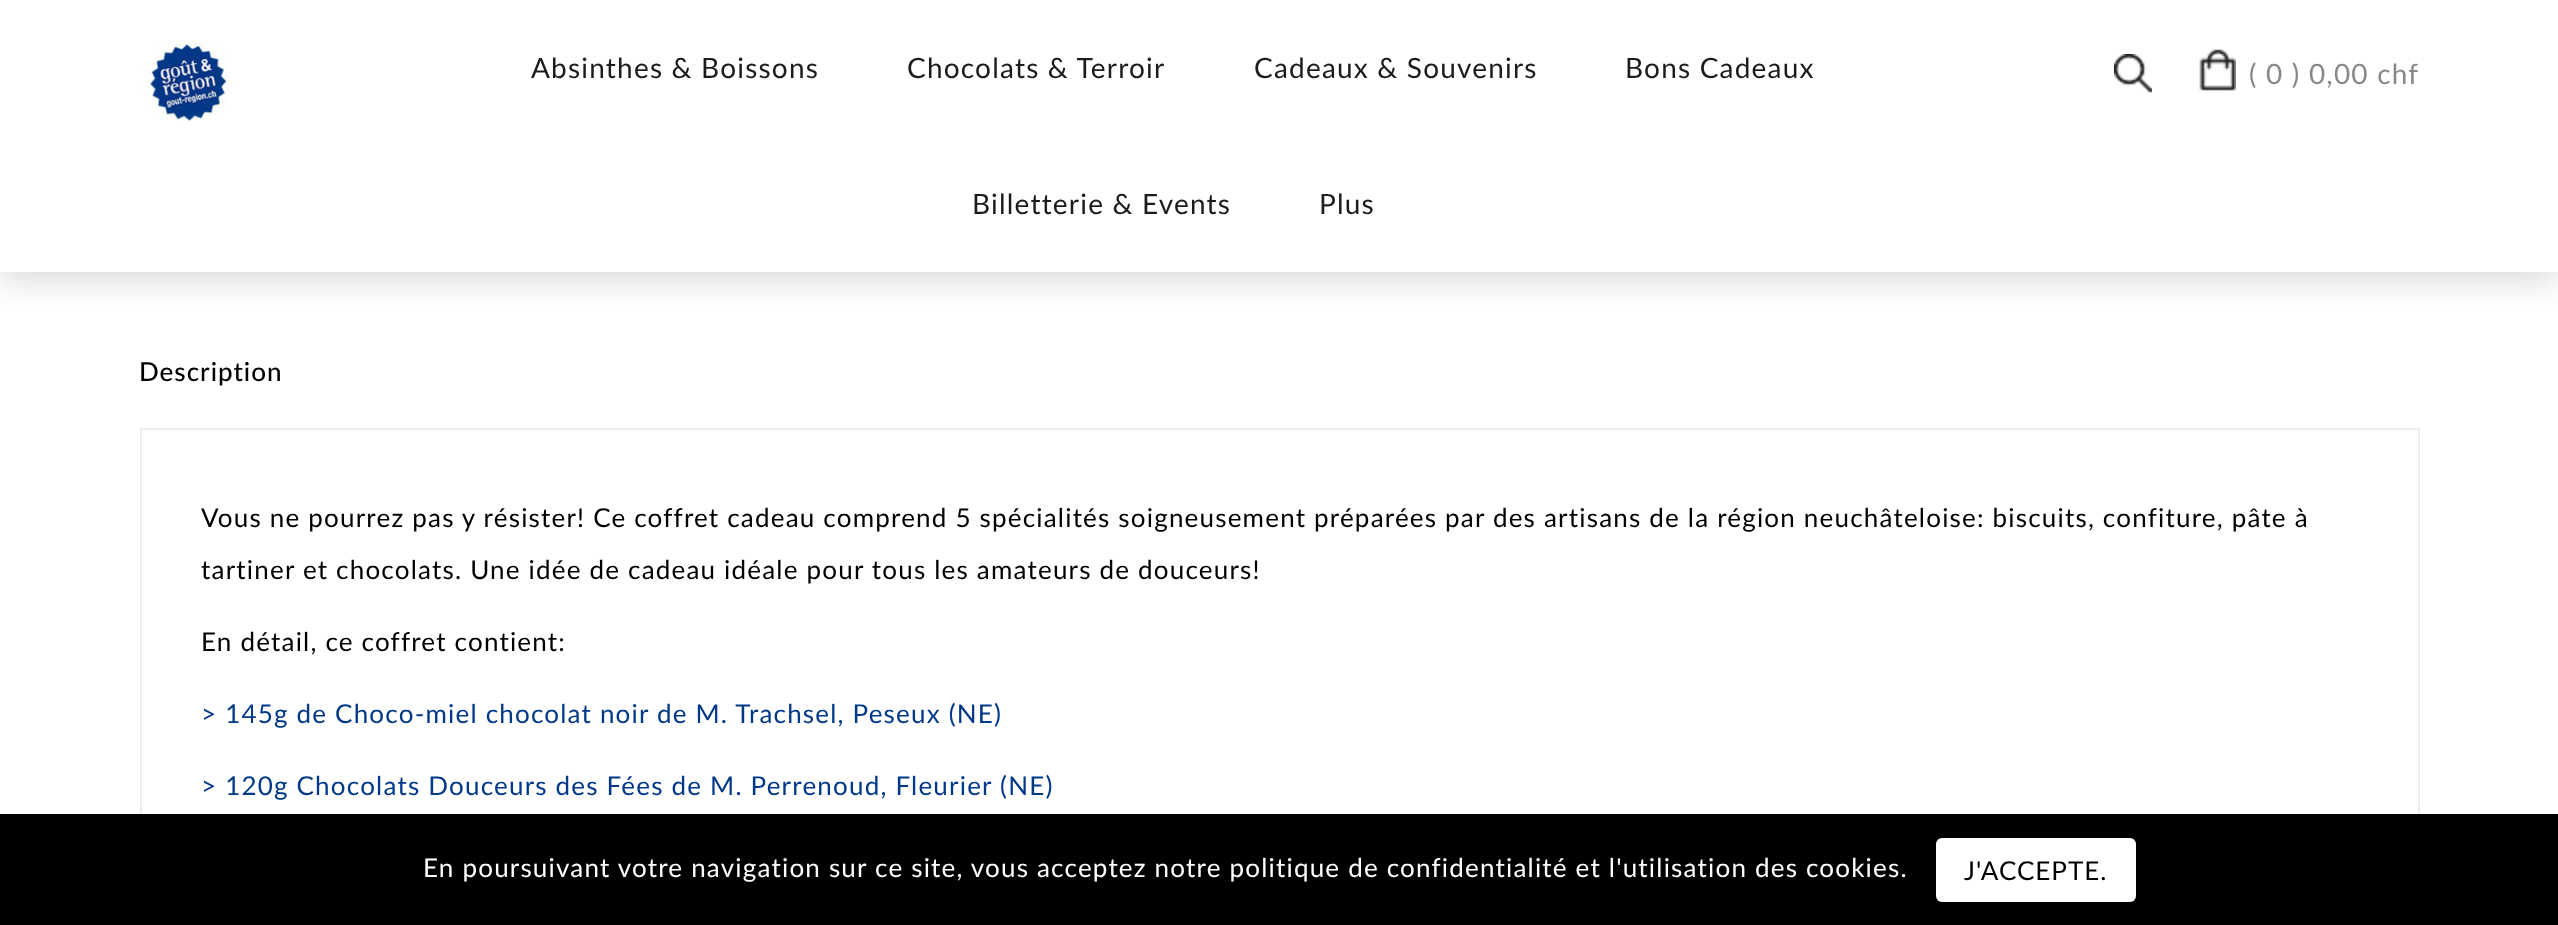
<!DOCTYPE html>
<meta charset="utf-8">
<style>body { margin: 0 } canvas { display: block }</style>
<canvas id="canvas" width="2558" height="925"></canvas>
<img id="img1" src="images/1.png" hidden>
<img id="img2" src="images/2.png" hidden>
<img id="img3" src="images/3.png" hidden>
<script>
window.onload = function () {
    const canvas = document.getElementById('canvas');
    const context = canvas.getContext('2d');
    context.miterLimit = 4;
    context.fontKerning = 'normal';

    context.fillStyle = 'rgb(255, 255, 255)';
    context.fillRect(0, 0, 2558, 925);
    context.fillStyle = 'rgba(0, 0, 0, 0.15)';
    context.filter = 'blur(16px)';
    context.beginPath();
    context.rect(0, 8, 2558, 272);
    context.fill();
    context.filter = 'none';
    context.fillStyle = 'rgb(255, 255, 255)';
    context.fillRect(0, 0, 2558, 272);
    context.drawImage(document.getElementById('img1'), 140, 42, 90, 79);
    context.drawImage(document.getElementById('img2'), 2114, 54, 38, 39);
    context.drawImage(document.getElementById('img3'), 2199, 49, 37, 42);
    context.strokeStyle = 'rgb(237, 237, 237)';
    context.lineWidth = 2;
    context.strokeRect(141, 429, 2278, 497);
    context.fillStyle = 'rgb(0, 0, 0)';
    context.fillRect(0, 814, 2558, 111);
    context.fillStyle = 'rgb(255, 255, 255)';
    context.beginPath();
    context.roundRect(1936, 838, 200, 64, 6);
    context.fill();
    context.letterSpacing = '1.2px';
    context.font = '28px Lato';
    context.fillStyle = 'rgb(28, 28, 28)';
    context.fillText('Absinthes & Boissons', 531, 78);
    context.fillText('Chocolats & Terroir', 907, 78);
    context.fillText('Cadeaux & Souvenirs', 1254, 78);
    context.fillText('Bons Cadeaux', 1625, 78);
    context.fillText('Billetterie & Events', 972, 214);
    context.fillText('Plus', 1319, 214);
    context.fillStyle = 'rgb(136, 136, 136)';
    context.fillText('( 0 ) 0,00 chf', 2249, 84);
    context.letterSpacing = '1px';
    context.font = '500 26px Lato';
    context.fillStyle = 'rgb(0, 0, 0)';
    context.fillText('Description', 139, 381);
    context.letterSpacing = '1.2px';
    context.font = '26px Lato';
    context.fillText('Vous ne pourrez pas y résister! Ce coffret cadeau comprend 5 spécialités soigneusement préparées par des artisans de la région neuchâteloise: biscuits, confiture, pâte à', 201, 527);
    context.fillText('tartiner et chocolats. Une idée de cadeau idéale pour tous les amateurs de douceurs!', 201, 579);
    context.fillText('En détail, ce coffret contient:', 201, 651);
    context.fillStyle = 'rgb(1, 56, 136)';
    context.fillText('> 145g de Choco-miel chocolat noir de M. Trachsel, Peseux (NE)', 201, 723);
    context.fillText('> 120g Chocolats Douceurs des Fées de M. Perrenoud, Fleurier (NE)', 201, 795);
    context.fillStyle = 'rgb(255, 255, 255)';
    context.fillText('En poursuivant votre navigation sur ce site, vous acceptez notre politique de confidentialité et l\'utilisation des cookies.', 423, 877);
    context.letterSpacing = '1px';
    context.fillStyle = 'rgb(0, 0, 0)';
    context.fillText('J\'ACCEPTE.', 1964, 880);
};
</script>
